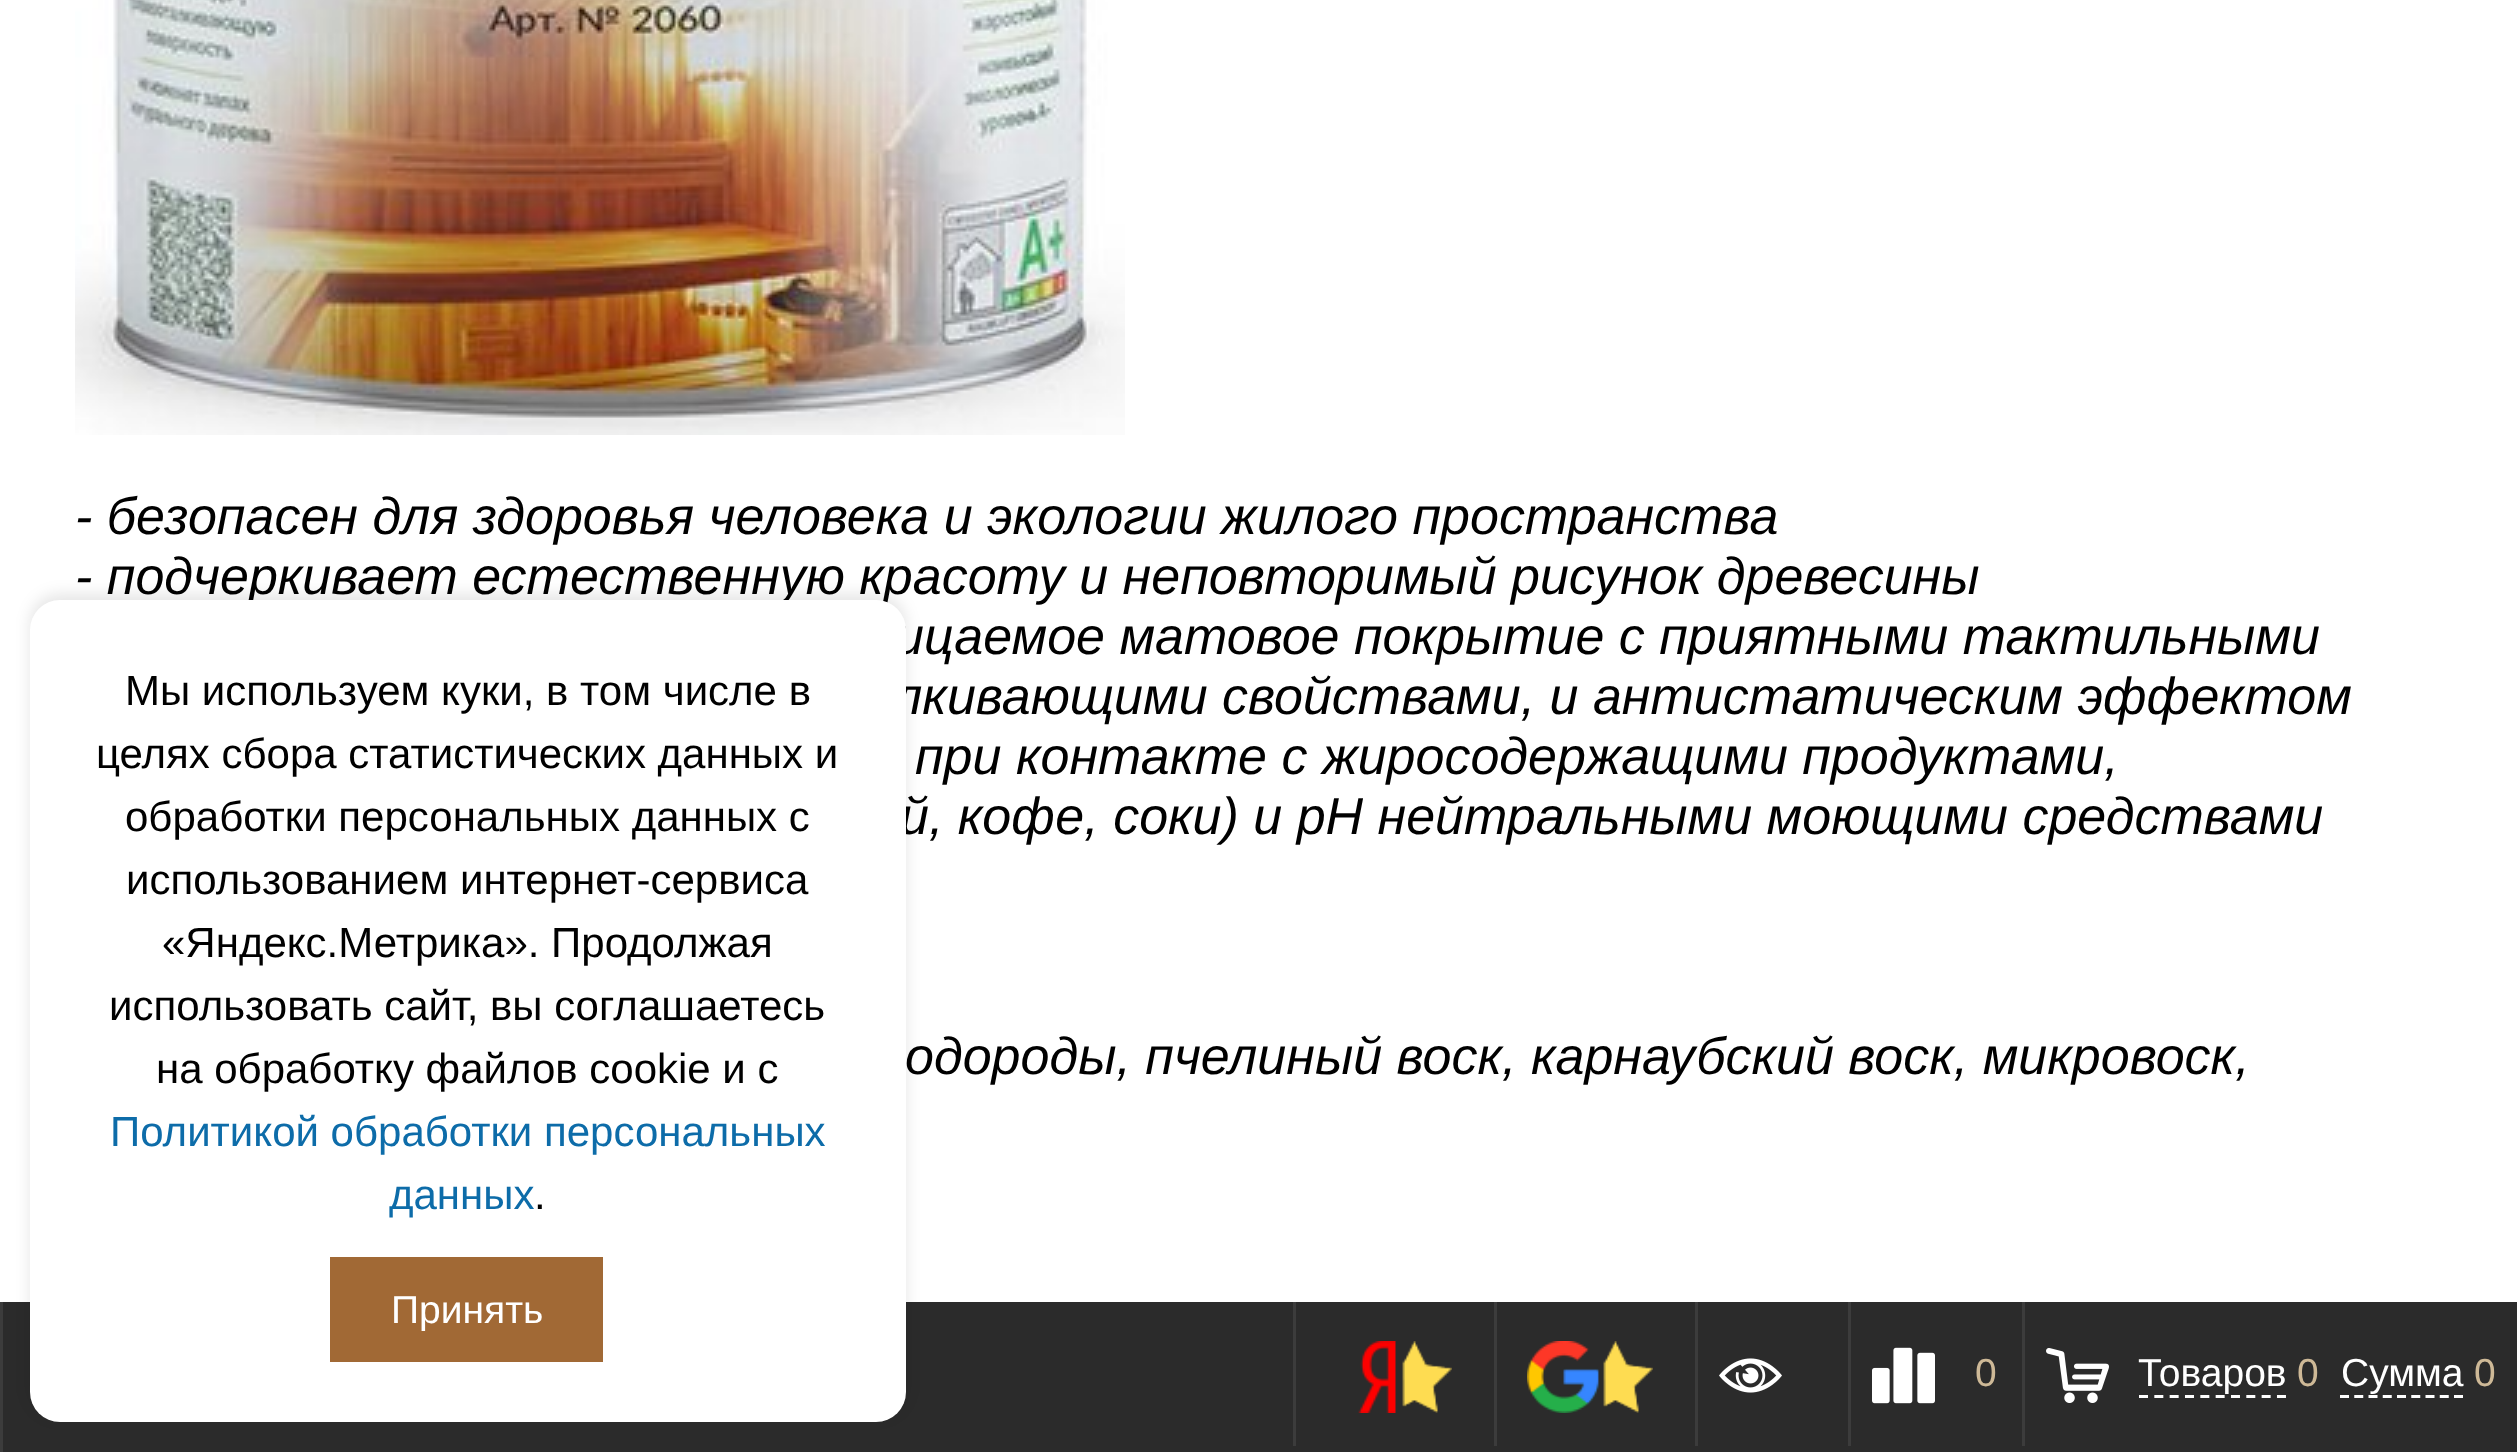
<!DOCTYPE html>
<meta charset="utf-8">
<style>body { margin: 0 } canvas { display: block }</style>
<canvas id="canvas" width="2517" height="1452"></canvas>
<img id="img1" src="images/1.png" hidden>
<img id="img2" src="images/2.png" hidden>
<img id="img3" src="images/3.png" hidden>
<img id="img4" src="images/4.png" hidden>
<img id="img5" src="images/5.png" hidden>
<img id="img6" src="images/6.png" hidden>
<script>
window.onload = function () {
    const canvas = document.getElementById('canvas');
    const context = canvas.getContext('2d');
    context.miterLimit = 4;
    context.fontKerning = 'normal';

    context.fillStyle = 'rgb(255, 255, 255)';
    context.fillRect(0, 0, 2517, 1452);
    context.drawImage(document.getElementById('img1'), 75, 0, 1050, 435);
    context.fillStyle = 'rgb(43, 43, 43)';
    context.fillRect(3, 1302, 2514, 150);
    context.fillStyle = 'rgba(0, 0, 0, 0.1)';
    context.filter = 'blur(7.5px)';
    context.beginPath();
    context.roundRect(30, 594, 876, 822, 30);
    context.fill();
    context.filter = 'none';
    context.fillStyle = 'rgb(60, 60, 60)';
    context.fillRect(0, 1302, 3, 150);
    context.fillRect(1293, 1302, 3, 144);
    context.drawImage(document.getElementById('img2'), 1358, 1341, 94, 72);
    context.fillRect(1494, 1302, 3, 144);
    context.drawImage(document.getElementById('img3'), 1527, 1341, 126, 72);
    context.fillRect(1695, 1302, 3, 144);
    context.drawImage(document.getElementById('img4'), 1719, 1358, 63, 35);
    context.fillRect(1848, 1302, 3, 144);
    context.drawImage(document.getElementById('img5'), 1872, 1347, 63, 57);
    context.fillRect(2022, 1302, 3, 144);
    context.drawImage(document.getElementById('img6'), 2046, 1348, 63, 55);
    context.beginPath();
    context.moveTo(2139, 1396.5);
    context.lineTo(2286, 1396.5);
    context.strokeStyle = 'rgb(255, 255, 255)';
    context.lineWidth = 3;
    context.setLineDash([9, 6.33]);
    context.stroke();
    context.beginPath();
    context.moveTo(2340, 1396.5);
    context.lineTo(2463, 1396.5);
    context.setLineDash([9, 5.25]);
    context.stroke();
    context.font = 'italic 52px Liberation Sans';
    context.fillStyle = 'rgb(0, 0, 0)';
    context.fillText('- безопасен для здоровья человека и экологии жилого пространства', 75, 534);
    context.fillText('- подчеркивает естественную красоту и неповторимый рисунок древесины', 75, 594);
    context.fillText('ицаемое матовое покрытие с приятными тактильными', 895, 654);
    context.fillText('лкивающими свойствами, и антистатическим эффектом', 893, 714);
    context.fillText('при контакте с жиросодержащими продуктами,', 915, 774);
    context.fillText('й, кофе, соки) и рН нейтральными моющими средствами', 900, 834);
    context.fillText('одороды, пчелиный воск, карнаубский воск, микровоск,', 905, 1074);
    context.fillStyle = 'rgb(255, 255, 255)';
    context.beginPath();
    context.roundRect(30, 600, 876, 822, 30);
    context.fill();
    context.font = '42px Liberation Sans';
    context.fillStyle = 'rgb(0, 0, 0)';
    context.fillText('Мы используем куки, в том числе в', 125, 705);
    context.fillText('целях сбора статистических данных и', 96, 768);
    context.fillText('обработки персональных данных с', 125, 831);
    context.fillText('использованием интернет-сервиса', 126, 894);
    context.fillText('«Яндекс.Метрика». Продолжая', 162, 957);
    context.fillText('использовать сайт, вы соглашаетесь', 109, 1020);
    context.fillText('на обработку файлов cookie и с', 156, 1083);
    context.fillStyle = 'rgb(13, 108, 169)';
    context.fillText('Политикой обработки персональных', 110, 1146);
    context.fillText('данных', 389, 1209);
    context.fillStyle = 'rgb(0, 0, 0)';
    context.fillText('.', 534, 1209);
    context.fillStyle = 'rgb(161, 105, 53)';
    context.fillRect(330, 1257, 273, 105);
    context.font = '39px Liberation Sans';
    context.fillStyle = 'rgb(255, 255, 255)';
    context.fillText('Принять', 391, 1323);
    context.fillStyle = 'rgb(206, 185, 151)';
    context.fillText('0', 1975, 1386);
    context.fillStyle = 'rgb(255, 255, 255)';
    context.fillText('Товаров', 2138, 1386);
    context.fillStyle = 'rgb(206, 185, 151)';
    context.fillText('0', 2297, 1386);
    context.fillStyle = 'rgb(255, 255, 255)';
    context.fillText('Сумма', 2341, 1386);
    context.fillStyle = 'rgb(206, 185, 151)';
    context.fillText('0', 2474, 1386);
};
</script>
